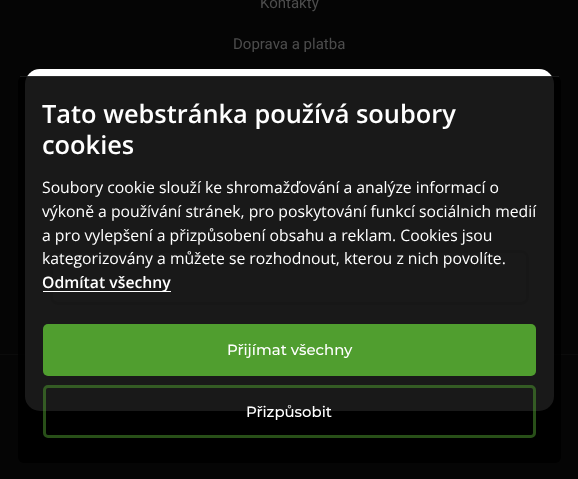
<!DOCTYPE html>
<meta charset="utf-8">
<style>body { margin: 0 } canvas { display: block }</style>
<canvas id="canvas" width="578" height="479"></canvas>
<script>
window.onload = function () {
    const canvas = document.getElementById('canvas');
    const context = canvas.getContext('2d');
    context.miterLimit = 4;
    context.fontKerning = 'normal';

    context.fillStyle = 'rgb(5, 5, 5)';
    context.fillRect(0, 0, 578, 479);
    context.fillStyle = 'rgb(11, 11, 11)';
    context.fillRect(0, 354, 578, 1);
    context.fillStyle = 'rgb(255, 255, 255)';
    context.beginPath();
    context.roundRect(25, 69, 529, 342, 15);
    context.fill();
    context.beginPath();
    context.roundRect(51.5, 251.5, 476, 52, 6.5);
    context.strokeStyle = 'rgb(232, 232, 232)';
    context.lineWidth = 3;
    context.stroke();
    context.fillStyle = 'rgba(0, 0, 0, 0.9)';
    context.beginPath();
    context.roundRect(18, 76, 543, 387, 6);
    context.fill();
    context.fillStyle = 'rgba(229, 234, 238, 0.1)';
    context.fillRect(20, 76, 539, 1);
    context.fillStyle = 'rgb(255, 255, 255)';
    context.fillRect(43, 291, 128, 1);
    context.fillStyle = 'rgb(80, 158, 47)';
    context.beginPath();
    context.roundRect(43, 324, 493, 52, 5);
    context.fill();
    context.beginPath();
    context.roundRect(44.5, 386.5, 490, 50, 3.5);
    context.strokeStyle = 'rgba(80, 158, 47, 0.5)';
    context.stroke();
    context.font = '15px Roboto';
    context.fillStyle = 'rgb(77, 77, 77)';
    context.fillText('Kontakty', 260, 8);
    context.fillText('Doprava a platba', 233, 49);
    context.font = '600 25.4px Open Sans';
    context.fillStyle = 'rgb(255, 255, 255)';
    context.fillText('Tato webstránka používá soubory', 42, 123);
    context.fillText('cookies', 42, 154);
    context.font = '15.75px Open Sans';
    context.fillText('Soubory cookie slouží ke shromažďování a analýze informací o', 42, 193);
    context.fillText('výkoně a používání stránek, pro poskytování funkcí sociálnich medií', 42, 217);
    context.fillText('a pro vylepšení a přizpůsobení obsahu a reklam. Cookies jsou', 42, 241);
    context.fillText('kategorizovány a můžete se rozhodnout, kterou z nich povolíte.', 42, 264);
    context.font = '600 15.75px Open Sans';
    context.fillText('Odmítat všechny', 42, 288);
    context.font = '500 14.9px Montserrat';
    context.fillText('Přijímat všechny', 227, 355);
    context.fillText('Přizpůsobit', 246, 417);
};
</script>
